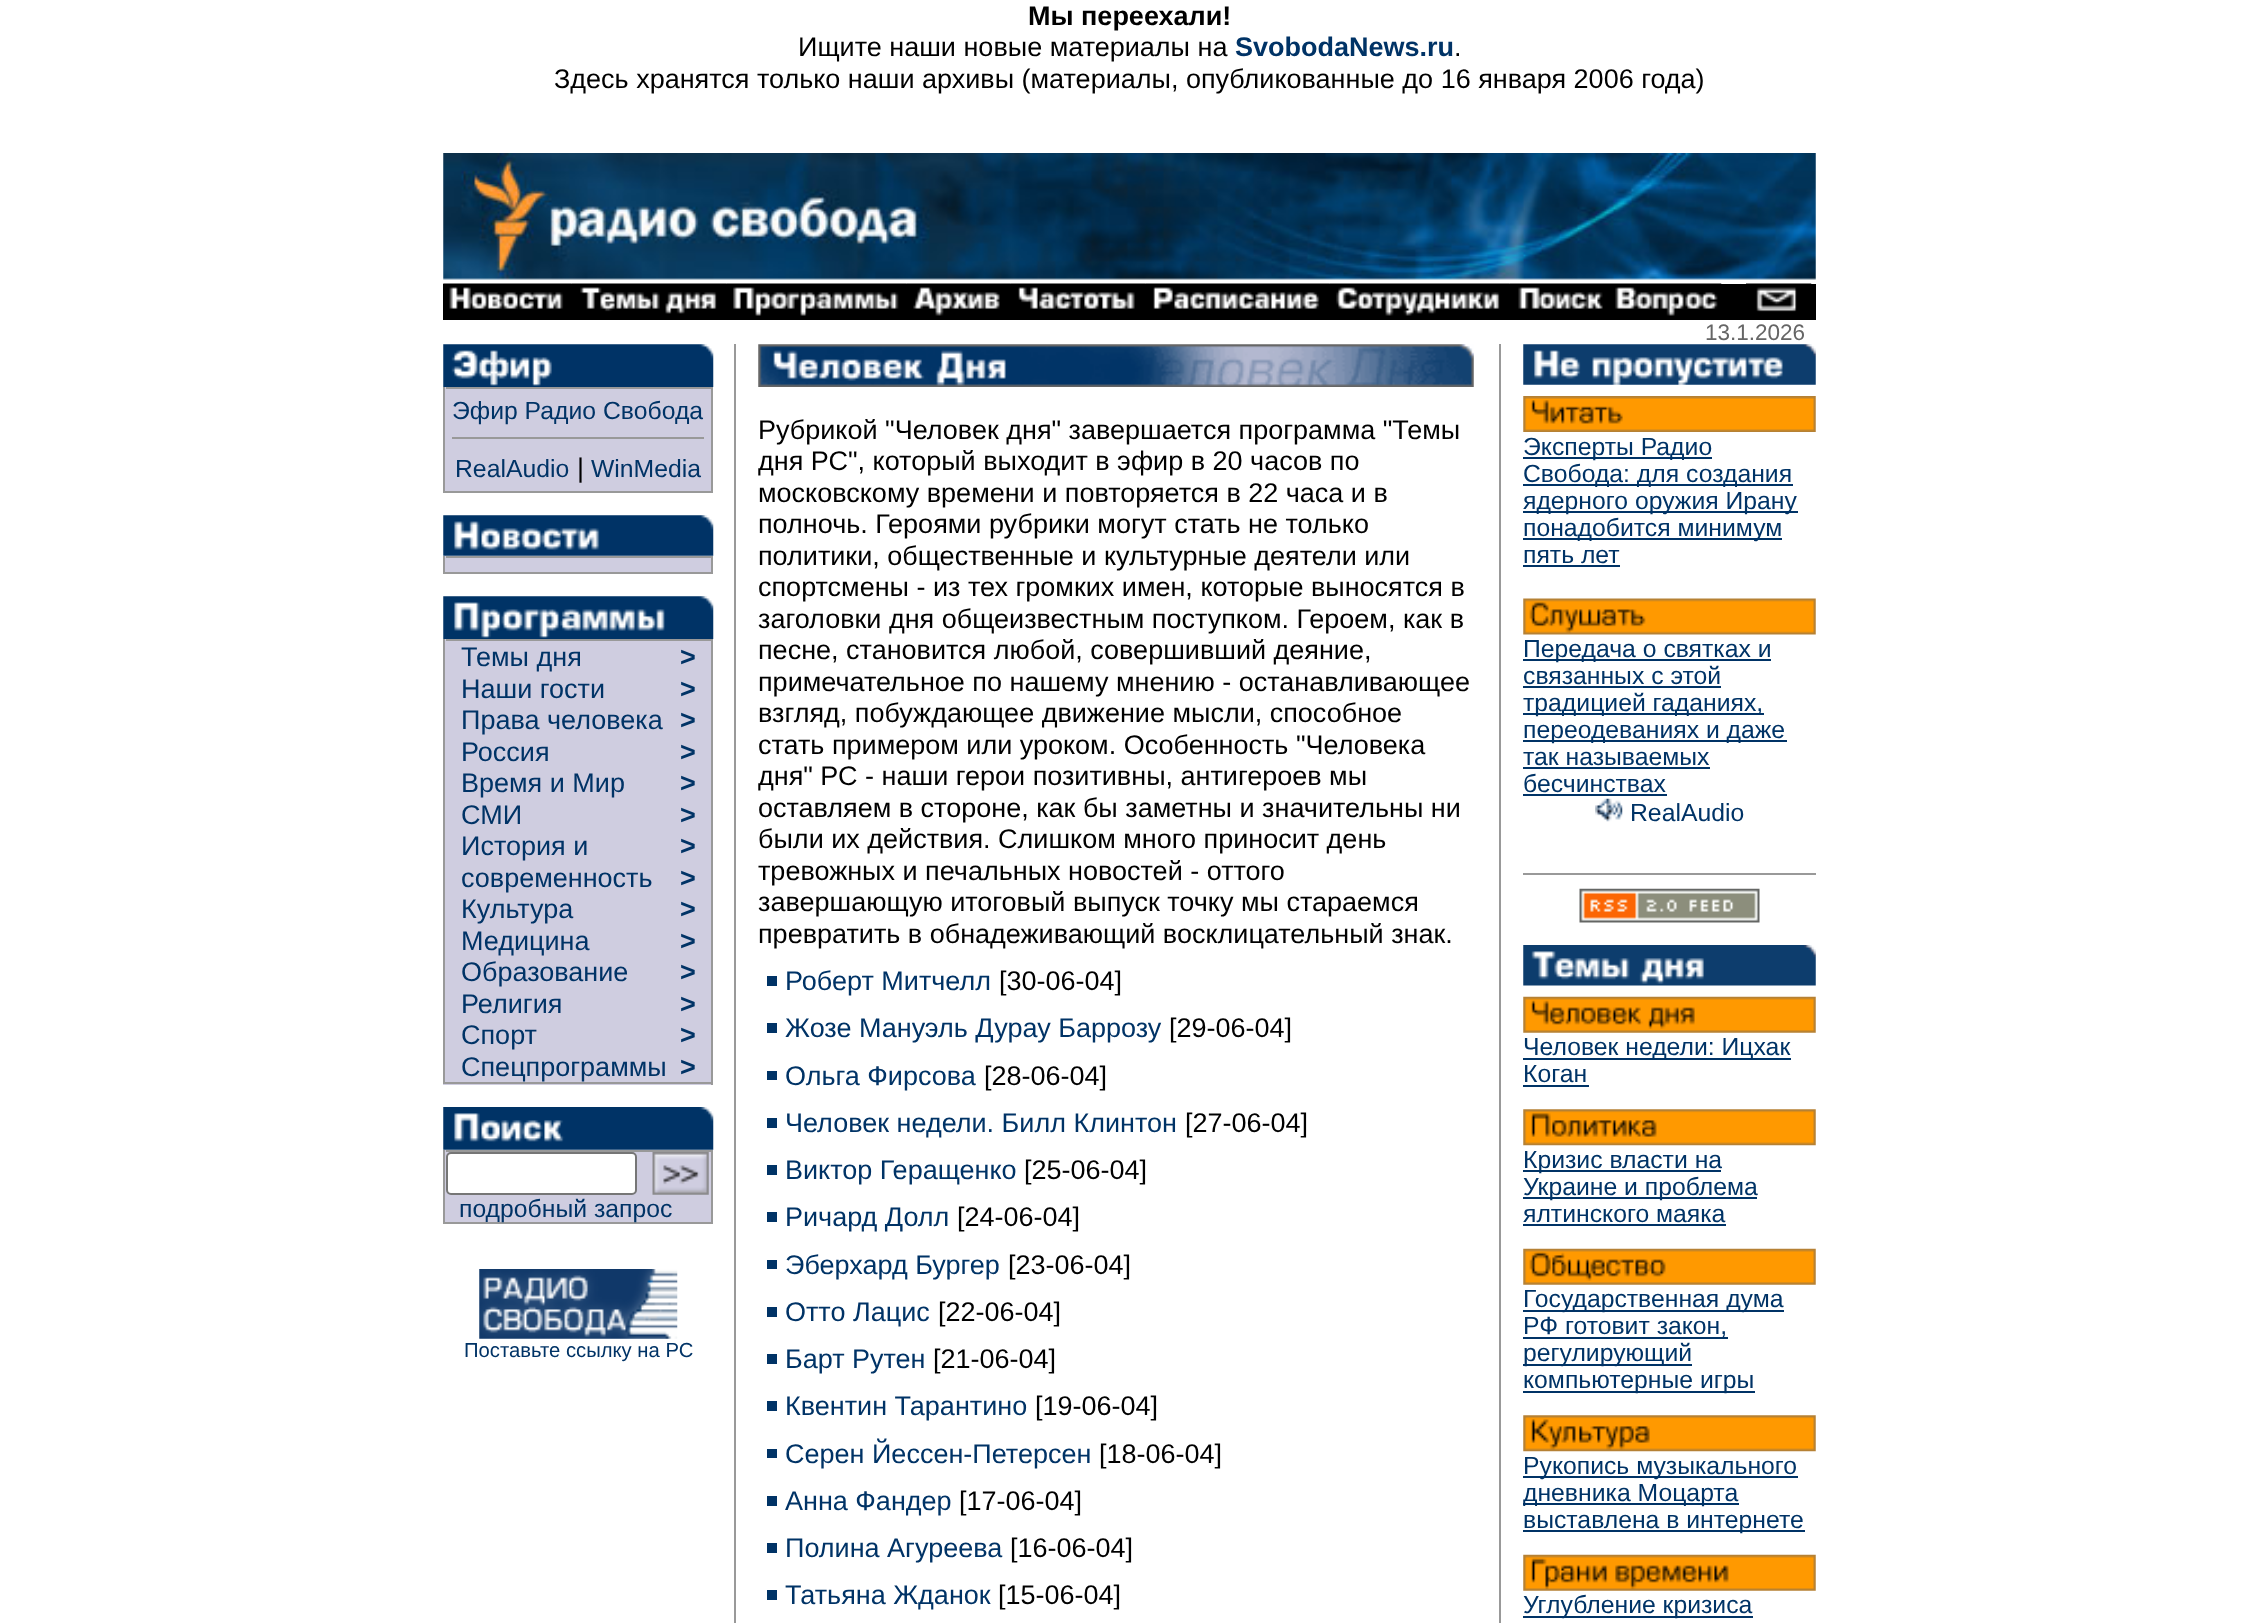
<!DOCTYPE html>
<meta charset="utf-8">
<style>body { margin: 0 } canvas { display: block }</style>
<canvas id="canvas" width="2258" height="1623"></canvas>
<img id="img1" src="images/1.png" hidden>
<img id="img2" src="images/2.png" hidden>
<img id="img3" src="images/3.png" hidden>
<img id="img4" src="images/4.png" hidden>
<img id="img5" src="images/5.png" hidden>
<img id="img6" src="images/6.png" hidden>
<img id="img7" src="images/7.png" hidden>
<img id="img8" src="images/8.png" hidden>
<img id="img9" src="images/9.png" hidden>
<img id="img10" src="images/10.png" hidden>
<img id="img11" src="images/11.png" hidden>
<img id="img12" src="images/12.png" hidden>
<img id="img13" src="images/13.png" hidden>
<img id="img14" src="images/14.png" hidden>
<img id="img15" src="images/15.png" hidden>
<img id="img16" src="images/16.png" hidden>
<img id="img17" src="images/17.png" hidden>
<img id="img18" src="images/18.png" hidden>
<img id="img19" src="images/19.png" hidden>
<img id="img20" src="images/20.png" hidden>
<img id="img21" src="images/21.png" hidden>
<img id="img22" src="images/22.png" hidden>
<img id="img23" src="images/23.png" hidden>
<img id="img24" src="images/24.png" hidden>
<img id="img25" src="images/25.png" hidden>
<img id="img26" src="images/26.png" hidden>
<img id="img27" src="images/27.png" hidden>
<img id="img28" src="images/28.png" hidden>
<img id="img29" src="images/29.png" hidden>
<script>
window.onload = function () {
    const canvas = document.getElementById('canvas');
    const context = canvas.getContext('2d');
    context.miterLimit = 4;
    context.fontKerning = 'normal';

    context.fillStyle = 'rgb(255, 255, 255)';
    context.fillRect(0, 0, 2258, 1623);
    context.drawImage(document.getElementById('img1'), 443, 153, 1373, 127);
    context.fillStyle = 'rgb(0, 0, 0)';
    context.fillRect(443, 284, 1373, 36);
    context.drawImage(document.getElementById('img2'), 443, 283, 129, 26);
    context.drawImage(document.getElementById('img3'), 571, 283, 156, 31);
    context.drawImage(document.getElementById('img4'), 726, 283, 181, 33);
    context.drawImage(document.getElementById('img5'), 906, 283, 105, 33);
    context.drawImage(document.getElementById('img6'), 1010, 283, 136, 26);
    context.drawImage(document.getElementById('img7'), 1145, 283, 185, 26);
    context.drawImage(document.getElementById('img8'), 1329, 283, 181, 33);
    context.drawImage(document.getElementById('img9'), 1509, 283, 102, 26);
    context.drawImage(document.getElementById('img10'), 1611, 283, 111, 33);
    context.drawImage(document.getElementById('img11'), 1746, 283, 66, 29);
    context.drawImage(document.getElementById('img12'), 443, 344, 271, 43);
    context.fillStyle = 'rgb(207, 205, 224)';
    context.fillRect(445, 387, 266, 104);
    context.fillStyle = 'rgb(153, 153, 153)';
    context.fillRect(443, 387, 2, 104);
    context.fillRect(446, 387, 267, 2);
    context.fillRect(452, 437, 252, 2);
    context.fillRect(711, 389, 2, 104);
    context.fillRect(443, 491, 268, 2);
    context.drawImage(document.getElementById('img13'), 443, 515, 271, 41);
    context.fillStyle = 'rgb(207, 205, 224)';
    context.fillRect(445, 556, 266, 16);
    context.fillStyle = 'rgb(153, 153, 153)';
    context.fillRect(443, 556, 2, 16);
    context.fillRect(446, 556, 267, 2);
    context.fillRect(443, 572, 268, 2);
    context.fillRect(711, 558, 2, 16);
    context.drawImage(document.getElementById('img14'), 443, 596, 271, 43);
    context.fillStyle = 'rgb(207, 205, 224)';
    context.fillRect(443, 639, 268, 446);
    context.fillStyle = 'rgb(153, 153, 153)';
    context.fillRect(443, 639, 2, 443);
    context.fillRect(446, 639, 267, 2);
    context.fillRect(711, 641, 2, 444);
    context.fillRect(443, 1082, 268, 2);
    context.drawImage(document.getElementById('img15'), 443, 1107, 271, 43);
    context.fillStyle = 'rgb(207, 205, 224)';
    context.fillRect(445, 1150, 266, 72);
    context.fillStyle = 'rgb(153, 153, 153)';
    context.fillRect(443, 1150, 2, 72);
    context.fillRect(446, 1150, 267, 2);
    context.fillStyle = 'rgb(255, 255, 255)';
    context.beginPath();
    context.roundRect(447, 1153, 189, 41, 4);
    context.fill();
    context.strokeStyle = 'rgb(118, 118, 118)';
    context.lineWidth = 2;
    context.stroke();
    context.drawImage(document.getElementById('img16'), 652, 1152, 57, 43);
    context.fillStyle = 'rgb(153, 153, 153)';
    context.fillRect(711, 1152, 2, 72);
    context.fillRect(443, 1222, 268, 2);
    context.drawImage(document.getElementById('img17'), 479, 1269, 199, 70);
    context.fillRect(734, 344, 2, 1279);
    context.drawImage(document.getElementById('img18'), 758, 344, 716, 43);
    context.fillStyle = 'rgb(0, 51, 102)';
    context.fillRect(767, 976, 10, 10);
    context.fillRect(767, 1023, 10, 10);
    context.fillRect(767, 1071, 10, 9);
    context.fillRect(767, 1118, 10, 10);
    context.fillRect(767, 1165, 10, 10);
    context.fillRect(767, 1212, 10, 10);
    context.fillRect(767, 1260, 10, 9);
    context.fillRect(767, 1307, 10, 10);
    context.fillRect(767, 1354, 10, 10);
    context.fillRect(767, 1401, 10, 10);
    context.fillRect(767, 1449, 10, 9);
    context.fillRect(767, 1496, 10, 10);
    context.fillRect(767, 1543, 10, 10);
    context.fillRect(767, 1590, 10, 10);
    context.fillStyle = 'rgb(153, 153, 153)';
    context.fillRect(1499, 344, 2, 1279);
    context.drawImage(document.getElementById('img19'), 1523, 344, 293, 41);
    context.drawImage(document.getElementById('img20'), 1523, 396, 293, 36);
    context.fillStyle = 'rgb(0, 51, 102)';
    context.fillRect(1523, 457, 189, 2);
    context.fillRect(1523, 484, 270, 2);
    context.fillRect(1523, 511, 275, 2);
    context.fillRect(1523, 538, 259, 2);
    context.fillRect(1523, 565, 97, 2);
    context.drawImage(document.getElementById('img21'), 1523, 598, 293, 37);
    context.fillRect(1523, 659, 248, 2);
    context.fillRect(1523, 686, 198, 2);
    context.fillRect(1523, 713, 241, 2);
    context.fillRect(1523, 740, 264, 2);
    context.fillRect(1523, 767, 187, 2);
    context.fillRect(1523, 794, 144, 2);
    context.drawImage(document.getElementById('img22'), 1595, 798, 28, 24);
    context.fillStyle = 'rgb(153, 153, 153)';
    context.fillRect(1523, 873, 293, 2);
    context.drawImage(document.getElementById('img23'), 1579, 888, 181, 35);
    context.drawImage(document.getElementById('img24'), 1523, 945, 293, 41);
    context.drawImage(document.getElementById('img25'), 1523, 996, 293, 37);
    context.fillStyle = 'rgb(0, 51, 102)';
    context.fillRect(1523, 1058, 268, 2);
    context.fillRect(1523, 1085, 66, 2);
    context.drawImage(document.getElementById('img26'), 1523, 1109, 293, 37);
    context.fillRect(1523, 1170, 198, 2);
    context.fillRect(1523, 1197, 234, 2);
    context.fillRect(1523, 1224, 203, 2);
    context.drawImage(document.getElementById('img27'), 1523, 1248, 293, 37);
    context.fillRect(1523, 1310, 261, 2);
    context.fillRect(1523, 1337, 205, 2);
    context.fillRect(1523, 1364, 169, 2);
    context.fillRect(1523, 1391, 232, 2);
    context.drawImage(document.getElementById('img28'), 1523, 1415, 293, 37);
    context.fillRect(1523, 1476, 275, 2);
    context.fillRect(1523, 1503, 216, 2);
    context.fillRect(1523, 1530, 282, 2);
    context.drawImage(document.getElementById('img29'), 1523, 1554, 293, 37);
    context.fillRect(1523, 1616, 230, 2);
    context.font = 'bold 27px Liberation Sans';
    context.fillStyle = 'rgb(0, 0, 0)';
    context.fillText('Мы переехали!', 1028, 25);
    context.font = '27px Liberation Sans';
    context.fillText('Ищите наши новые материалы на', 798, 56);
    context.font = 'bold 27px Liberation Sans';
    context.fillStyle = 'rgb(0, 51, 102)';
    context.fillText('SvobodaNews.ru', 1235, 56);
    context.font = '27px Liberation Sans';
    context.fillStyle = 'rgb(0, 0, 0)';
    context.fillText('.', 1454, 56);
    context.fillText('Здесь хранятся только наши архивы (материалы, опубликованные до 16 января 2006 года)', 554, 88);
    context.font = '22.5px Liberation Sans';
    context.fillStyle = 'rgb(102, 102, 102)';
    context.fillText('13.1.2026', 1705, 340);
    context.font = '24.75px Liberation Sans';
    context.fillStyle = 'rgb(0, 51, 102)';
    context.fillText('Эфир Радио Свобода', 452, 419);
    context.fillText('RealAudio', 455, 477);
    context.font = '27px Liberation Sans';
    context.fillStyle = 'rgb(0, 0, 0)';
    context.fillText('|', 577, 477);
    context.font = '24.75px Liberation Sans';
    context.fillStyle = 'rgb(0, 51, 102)';
    context.fillText('WinMedia', 591, 477);
    context.font = '27px Liberation Sans';
    context.fillText('Темы дня', 461, 666);
    context.font = 'bold 27px Liberation Sans';
    context.fillText('>', 680, 666);
    context.font = '27px Liberation Sans';
    context.fillText('Наши гости', 461, 698);
    context.font = 'bold 27px Liberation Sans';
    context.fillText('>', 680, 698);
    context.font = '27px Liberation Sans';
    context.fillText('Права человека', 461, 729);
    context.font = 'bold 27px Liberation Sans';
    context.fillText('>', 680, 729);
    context.font = '27px Liberation Sans';
    context.fillText('Россия', 461, 761);
    context.font = 'bold 27px Liberation Sans';
    context.fillText('>', 680, 761);
    context.font = '27px Liberation Sans';
    context.fillText('Время и Мир', 461, 792);
    context.font = 'bold 27px Liberation Sans';
    context.fillText('>', 680, 792);
    context.font = '27px Liberation Sans';
    context.fillText('СМИ', 461, 824);
    context.font = 'bold 27px Liberation Sans';
    context.fillText('>', 680, 824);
    context.font = '27px Liberation Sans';
    context.fillText('История и', 461, 855);
    context.fillText('современность', 461, 887);
    context.font = 'bold 27px Liberation Sans';
    context.fillText('>', 680, 855);
    context.fillText('>', 680, 887);
    context.font = '27px Liberation Sans';
    context.fillText('Культура', 461, 918);
    context.font = 'bold 27px Liberation Sans';
    context.fillText('>', 680, 918);
    context.font = '27px Liberation Sans';
    context.fillText('Медицина', 461, 950);
    context.font = 'bold 27px Liberation Sans';
    context.fillText('>', 680, 950);
    context.font = '27px Liberation Sans';
    context.fillText('Образование', 461, 981);
    context.font = 'bold 27px Liberation Sans';
    context.fillText('>', 680, 981);
    context.font = '27px Liberation Sans';
    context.fillText('Религия', 461, 1013);
    context.font = 'bold 27px Liberation Sans';
    context.fillText('>', 680, 1013);
    context.font = '27px Liberation Sans';
    context.fillText('Спорт', 461, 1044);
    context.font = 'bold 27px Liberation Sans';
    context.fillText('>', 680, 1044);
    context.font = '27px Liberation Sans';
    context.fillText('Спецпрограммы', 461, 1076);
    context.font = 'bold 27px Liberation Sans';
    context.fillText('>', 680, 1076);
    context.font = '24.75px Liberation Sans';
    context.fillText('подробный запрос', 459, 1217);
    context.font = '20.25px Liberation Sans';
    context.fillText('Поставьте ссылку на РС', 464, 1357);
    context.font = '27px Liberation Sans';
    context.fillStyle = 'rgb(0, 0, 0)';
    context.fillText('Рубрикой "Человек дня" завершается программа "Темы', 758, 439);
    context.fillText('дня РС", который выходит в эфир в 20 часов по', 758, 470);
    context.fillText('московскому времени и повторяется в 22 часа и в', 758, 502);
    context.fillText('полночь. Героями рубрики могут стать не только', 758, 533);
    context.fillText('политики, общественные и культурные деятели или', 758, 565);
    context.fillText('спортсмены - из тех громких имен, которые выносятся в', 758, 596);
    context.fillText('заголовки дня общеизвестным поступком. Героем, как в', 758, 628);
    context.fillText('песне, становится любой, совершивший деяние,', 758, 659);
    context.fillText('примечательное по нашему мнению - останавливающее', 758, 691);
    context.fillText('взгляд, побуждающее движение мысли, способное', 758, 722);
    context.fillText('стать примером или уроком. Особенность "Человека', 758, 754);
    context.fillText('дня" РС - наши герои позитивны, антигероев мы', 758, 785);
    context.fillText('оставляем в стороне, как бы заметны и значительны ни', 758, 817);
    context.fillText('были их действия. Слишком много приносит день', 758, 848);
    context.fillText('тревожных и печальных новостей - оттого', 758, 880);
    context.fillText('завершающую итоговый выпуск точку мы стараемся', 758, 911);
    context.fillText('превратить в обнадеживающий восклицательный знак.', 758, 943);
    context.fillStyle = 'rgb(0, 51, 102)';
    context.fillText('Роберт Митчелл', 785, 990);
    context.fillStyle = 'rgb(0, 0, 0)';
    context.fillText('[30-06-04]', 999, 990);
    context.fillStyle = 'rgb(0, 51, 102)';
    context.fillText('Жозе Мануэль Дурау Баррозу', 785, 1037);
    context.fillStyle = 'rgb(0, 0, 0)';
    context.fillText('[29-06-04]', 1169, 1037);
    context.fillStyle = 'rgb(0, 51, 102)';
    context.fillText('Ольга Фирсова', 785, 1085);
    context.fillStyle = 'rgb(0, 0, 0)';
    context.fillText('[28-06-04]', 984, 1085);
    context.fillStyle = 'rgb(0, 51, 102)';
    context.fillText('Человек недели. Билл Клинтон', 785, 1132);
    context.fillStyle = 'rgb(0, 0, 0)';
    context.fillText('[27-06-04]', 1185, 1132);
    context.fillStyle = 'rgb(0, 51, 102)';
    context.fillText('Виктор Геращенко', 785, 1179);
    context.fillStyle = 'rgb(0, 0, 0)';
    context.fillText('[25-06-04]', 1024, 1179);
    context.fillStyle = 'rgb(0, 51, 102)';
    context.fillText('Ричард Долл', 785, 1226);
    context.fillStyle = 'rgb(0, 0, 0)';
    context.fillText('[24-06-04]', 957, 1226);
    context.fillStyle = 'rgb(0, 51, 102)';
    context.fillText('Эберхард Бургер', 785, 1274);
    context.fillStyle = 'rgb(0, 0, 0)';
    context.fillText('[23-06-04]', 1008, 1274);
    context.fillStyle = 'rgb(0, 51, 102)';
    context.fillText('Отто Лацис', 785, 1321);
    context.fillStyle = 'rgb(0, 0, 0)';
    context.fillText('[22-06-04]', 938, 1321);
    context.fillStyle = 'rgb(0, 51, 102)';
    context.fillText('Барт Рутен', 785, 1368);
    context.fillStyle = 'rgb(0, 0, 0)';
    context.fillText('[21-06-04]', 933, 1368);
    context.fillStyle = 'rgb(0, 51, 102)';
    context.fillText('Квентин Тарантино', 785, 1415);
    context.fillStyle = 'rgb(0, 0, 0)';
    context.fillText('[19-06-04]', 1035, 1415);
    context.fillStyle = 'rgb(0, 51, 102)';
    context.fillText('Серен Йессен-Петерсен', 785, 1463);
    context.fillStyle = 'rgb(0, 0, 0)';
    context.fillText('[18-06-04]', 1099, 1463);
    context.fillStyle = 'rgb(0, 51, 102)';
    context.fillText('Анна Фандер', 785, 1510);
    context.fillStyle = 'rgb(0, 0, 0)';
    context.fillText('[17-06-04]', 959, 1510);
    context.fillStyle = 'rgb(0, 51, 102)';
    context.fillText('Полина Агуреева', 785, 1557);
    context.fillStyle = 'rgb(0, 0, 0)';
    context.fillText('[16-06-04]', 1010, 1557);
    context.fillStyle = 'rgb(0, 51, 102)';
    context.fillText('Татьяна Жданок', 785, 1604);
    context.fillStyle = 'rgb(0, 0, 0)';
    context.fillText('[15-06-04]', 998, 1604);
    context.font = '24.75px Liberation Sans';
    context.fillStyle = 'rgb(0, 51, 102)';
    context.fillText('Эксперты Радио', 1523, 455);
    context.fillText('Свобода: для создания', 1523, 482);
    context.fillText('ядерного оружия Ирану', 1523, 509);
    context.fillText('понадобится минимум', 1523, 536);
    context.fillText('пять лет', 1523, 563);
    context.fillText('Передача о святках и', 1523, 657);
    context.fillText('связанных с этой', 1523, 684);
    context.fillText('традицией гаданиях,', 1523, 711);
    context.fillText('переодеваниях и даже', 1523, 738);
    context.fillText('так называемых', 1523, 765);
    context.fillText('бесчинствах', 1523, 792);
    context.fillText('RealAudio', 1630, 821);
    context.fillText('Человек недели: Ицхак', 1523, 1055);
    context.fillText('Коган', 1523, 1082);
    context.fillText('Кризис власти на', 1523, 1168);
    context.fillText('Украине и проблема', 1523, 1195);
    context.fillText('ялтинского маяка', 1523, 1222);
    context.fillText('Государственная дума', 1523, 1307);
    context.fillText('РФ готовит закон,', 1523, 1334);
    context.fillText('регулирующий', 1523, 1361);
    context.fillText('компьютерные игры', 1523, 1388);
    context.fillText('Рукопись музыкального', 1523, 1474);
    context.fillText('дневника Моцарта', 1523, 1501);
    context.fillText('выставлена в интернете', 1523, 1528);
    context.fillText('Углубление кризиса', 1523, 1613);
};
</script>
